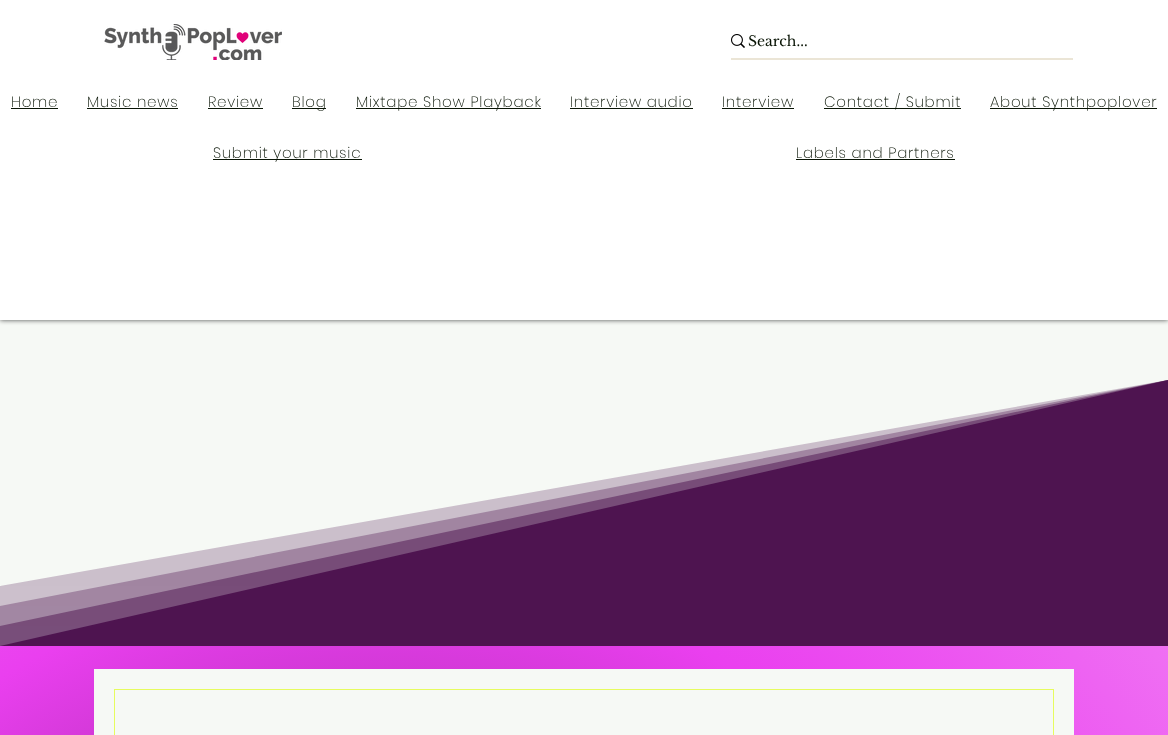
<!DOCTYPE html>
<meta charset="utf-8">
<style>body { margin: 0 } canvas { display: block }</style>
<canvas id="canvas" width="1168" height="735"></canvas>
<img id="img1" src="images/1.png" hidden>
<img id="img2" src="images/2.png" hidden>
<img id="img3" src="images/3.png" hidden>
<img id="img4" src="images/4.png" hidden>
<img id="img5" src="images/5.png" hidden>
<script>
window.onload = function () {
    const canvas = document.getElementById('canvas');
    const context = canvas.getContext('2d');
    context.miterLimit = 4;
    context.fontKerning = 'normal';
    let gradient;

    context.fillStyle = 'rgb(246, 249, 245)';
    context.fillRect(0, 0, 1168, 735);
    context.fillStyle = 'rgba(0, 0, 0, 0.7)';
    context.filter = 'blur(2.5px)';
    context.beginPath();
    context.rect(0, 0, 1168, 320);
    context.fill();
    context.filter = 'none';
    context.fillStyle = 'rgb(255, 255, 255)';
    context.fillRect(0, 0, 1168, 320);
    context.drawImage(document.getElementById('img1'), 104, 24, 178, 36);
    context.fillStyle = 'rgb(235, 229, 214)';
    context.fillRect(731, 58, 342, 2);
    context.drawImage(document.getElementById('img2'), 731, 34, 14, 14);
    context.fillStyle = 'rgb(9, 20, 5)';
    context.fillRect(11, 108, 47, 1);
    context.fillRect(87, 108, 91, 1);
    context.fillRect(208, 108, 55, 1);
    context.fillRect(292, 108, 34, 1);
    context.fillRect(356, 108, 185, 1);
    context.fillRect(570, 108, 123, 1);
    context.fillRect(722, 108, 72, 1);
    context.fillRect(824, 108, 137, 1);
    context.fillRect(990, 108, 167, 1);
    context.fillRect(213, 159, 149, 1);
    context.fillRect(796, 159, 159, 1);
    context.drawImage(document.getElementById('img3'), 1, 380, 1167, 206);
    context.fillStyle = 'rgb(204, 192, 204)';
    context.fillRect(0, 586, 264, 20);
    context.drawImage(document.getElementById('img4'), 0, 380, 1168, 226);
    context.fillStyle = 'rgb(162, 135, 163)';
    context.fillRect(0, 606, 176, 20);
    context.drawImage(document.getElementById('img5'), 0, 380, 1168, 246);
    context.fillStyle = 'rgb(120, 78, 122)';
    context.fillRect(0, 626, 88, 20);
    context.fillStyle = 'rgb(78, 20, 80)';
    context.beginPath();
    context.moveTo(0, 646);
    context.lineTo(1168, 380);
    context.lineTo(1168, 646);
    context.closePath();
    context.fill();
    gradient = context.createRadialGradient(374, 1263, 0, 374, 1263, 1927);
    gradient.addColorStop(0, 'rgb(80, 22, 82)');
    gradient.addColorStop(0.36, 'rgb(234, 63, 239)');
    gradient.addColorStop(1, 'rgb(255, 255, 255)');
    context.fillStyle = gradient;
    context.fillRect(0, 646, 1168, 89);
    context.fillStyle = 'rgb(246, 249, 245)';
    context.fillRect(94, 669, 980, 66);
    context.strokeStyle = 'rgb(230, 252, 94)';
    context.strokeRect(114.5, 689.5, 939, 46);
    context.font = '14px Libre Baskerville';
    context.fillStyle = 'rgb(9, 20, 5)';
    context.fillText('Search...', 748, 46);
    context.letterSpacing = '0.75px';
    context.font = '200 15px Poppins';
    context.fillText('Home', 11, 107);
    context.fillText('Music news', 87, 107);
    context.fillText('Review', 208, 107);
    context.fillText('Blog', 292, 107);
    context.fillText('Mixtape Show Playback', 356, 107);
    context.fillText('Interview audio', 570, 107);
    context.fillText('Interview', 722, 107);
    context.fillText('Contact / Submit', 824, 107);
    context.fillText('About Synthpoplover', 990, 107);
    context.fillText('Submit your music', 213, 158);
    context.fillText('Labels and Partners', 796, 158);
};
</script>
